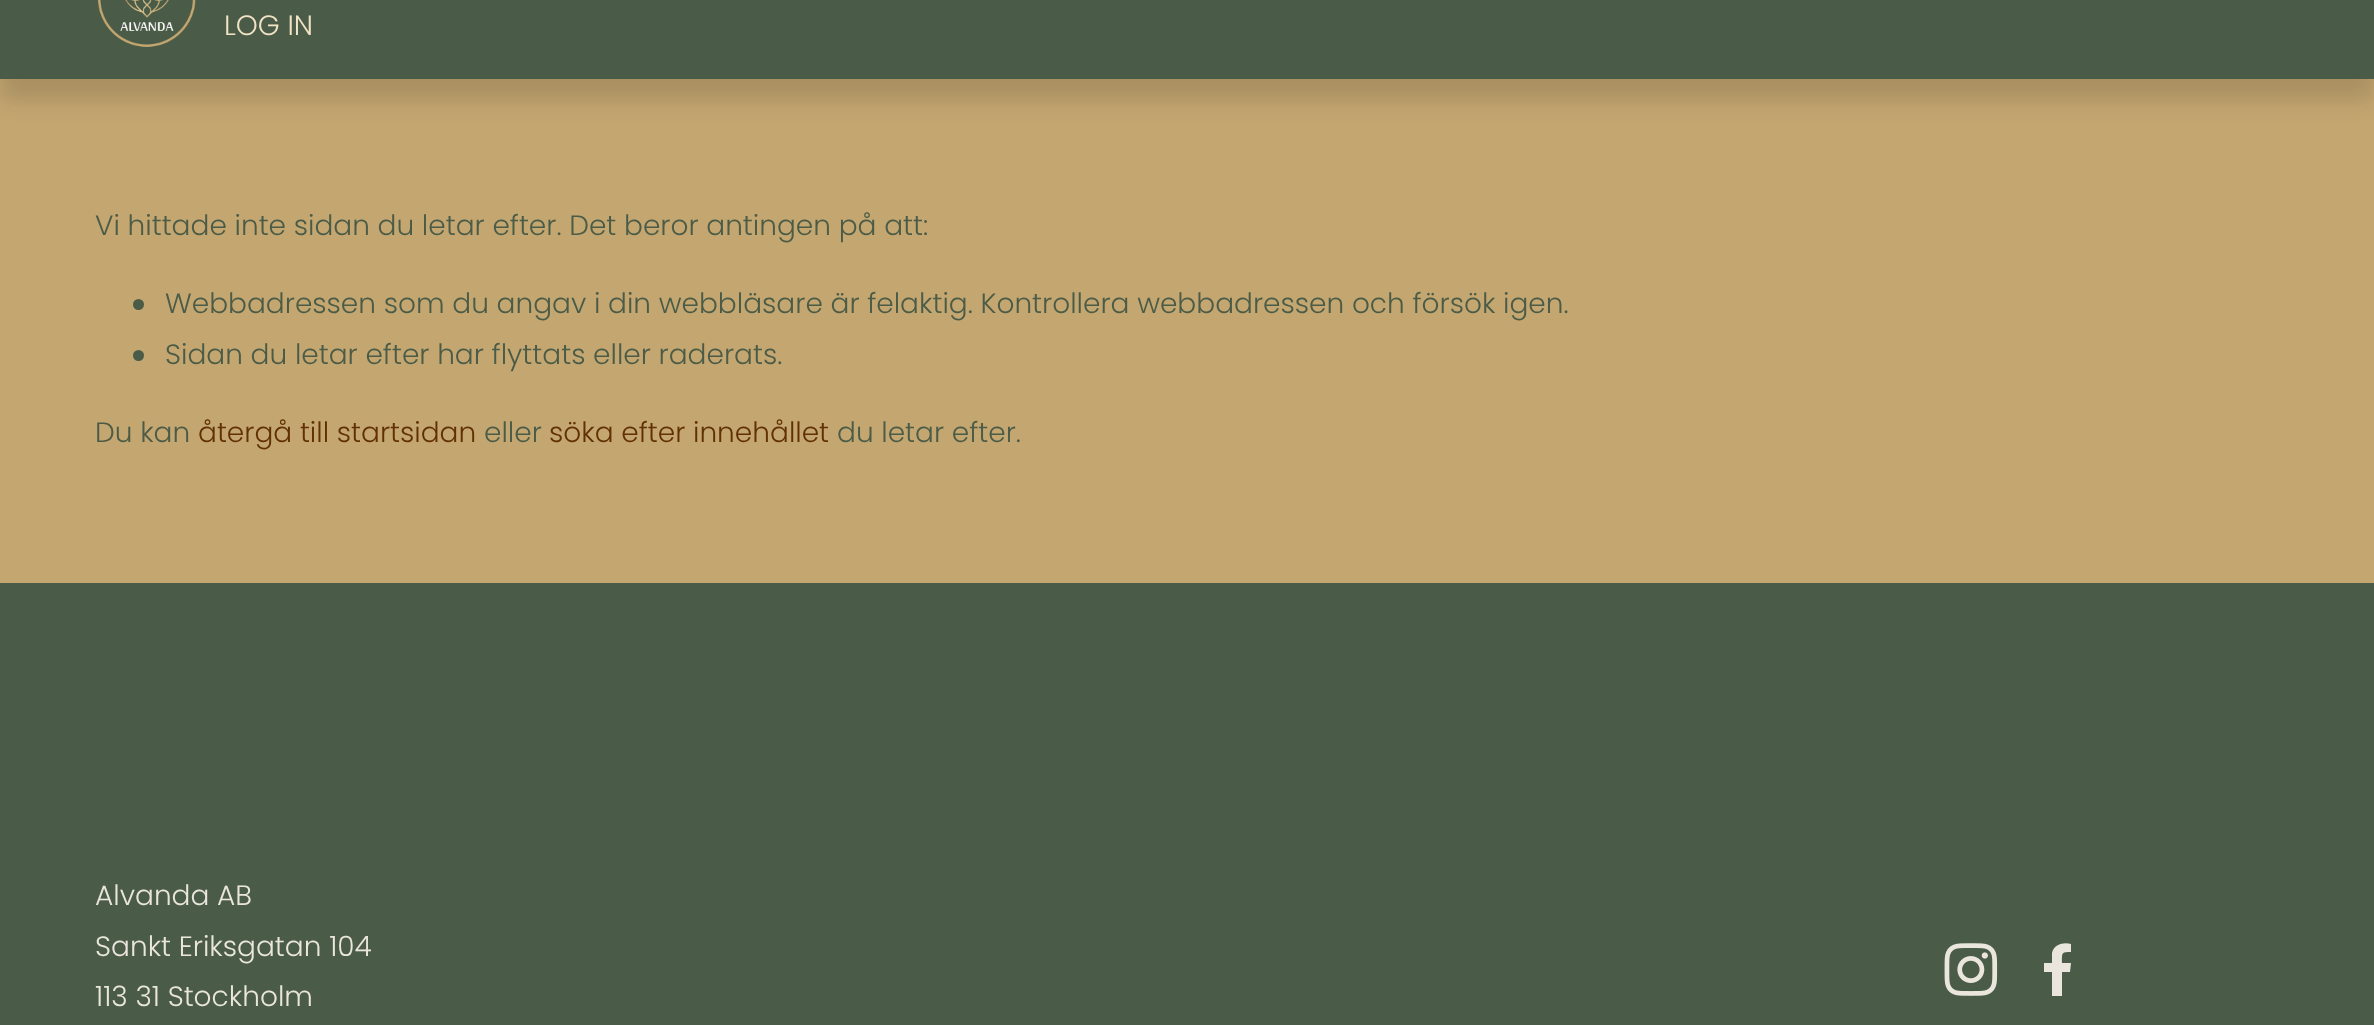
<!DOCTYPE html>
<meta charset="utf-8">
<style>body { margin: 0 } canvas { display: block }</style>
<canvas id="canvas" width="2374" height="1025"></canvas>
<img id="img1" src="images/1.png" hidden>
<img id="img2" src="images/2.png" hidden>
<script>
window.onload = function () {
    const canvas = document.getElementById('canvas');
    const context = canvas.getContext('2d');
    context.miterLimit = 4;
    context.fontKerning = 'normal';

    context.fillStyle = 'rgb(196, 166, 112)';
    context.fillRect(0, 0, 2374, 1025);
    context.fillStyle = 'rgb(74, 91, 71)';
    context.fillRect(0, 0, 2374, 79);
    context.save();
    context.beginPath();
    context.moveTo(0, 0);
    context.lineTo(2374, 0);
    context.lineTo(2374, 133);
    context.lineTo(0, 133);
    context.closePath();
    context.moveTo(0, -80);
    context.lineTo(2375, -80);
    context.lineTo(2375, 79);
    context.lineTo(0, 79);
    context.closePath();
    context.clip('evenodd');
    context.fillStyle = 'rgba(23, 23, 22, 0.15)';
    context.filter = 'blur(10.5px)';
    context.beginPath();
    context.rect(0, -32, 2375, 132);
    context.fill();
    context.filter = 'none';
    context.restore();
    context.drawImage(document.getElementById('img1'), 98, 0, 98, 47);
    context.beginPath();
    context.arc(138.5, 304.5, 5.5, 0, 2 * Math.PI);
    context.fill();
    context.beginPath();
    context.arc(138.5, 355.5, 5.5, 0, 2 * Math.PI);
    context.fill();
    context.fillRect(0, 583, 2374, 442);
    context.drawImage(document.getElementById('img2'), 1944, 943, 54, 53);
    context.fillStyle = 'rgb(234, 230, 221)';
    context.beginPath();
    context.moveTo(2062, 996);
    context.lineTo(2062, 972);
    context.lineTo(2070, 972);
    context.lineTo(2071, 963);
    context.lineTo(2062, 963);
    context.bezierCurveTo(2062, 953, 2061, 952, 2071, 952);
    context.lineTo(2071, 944);
    context.bezierCurveTo(2064, 942, 2054, 944, 2052, 953);
    context.lineTo(2052, 963);
    context.lineTo(2044, 963);
    context.lineTo(2044, 972);
    context.lineTo(2052, 972);
    context.lineTo(2052, 996);
    context.closePath();
    context.fill();
    context.font = '300 28px Poppins';
    context.fillStyle = 'rgb(241, 227, 198)';
    context.fillText('LOG IN', 224, 35);
    context.fillStyle = 'rgb(74, 91, 71)';
    context.fillText('Vi hittade inte sidan du letar efter. Det beror antingen på att:', 95, 235);
    context.fillText('Webbadressen som du angav i din webbläsare är felaktig. Kontrollera webbadressen och försök igen.', 165, 313);
    context.fillText('Sidan du letar efter har flyttats eller raderats.', 165, 364);
    context.fillText('Du kan', 95, 442);
    context.fillStyle = 'rgb(97, 49, 4)';
    context.fillText('återgå till startsidan', 198, 442);
    context.fillStyle = 'rgb(74, 91, 71)';
    context.fillText('eller', 484, 442);
    context.fillStyle = 'rgb(97, 49, 4)';
    context.fillText('söka efter innehållet', 549, 442);
    context.fillStyle = 'rgb(74, 91, 71)';
    context.fillText('du letar efter.', 837, 442);
    context.fillStyle = 'rgb(234, 230, 221)';
    context.fillText('Alvanda AB', 95, 905);
    context.fillText('Sankt Eriksgatan 104', 95, 956);
    context.fillText('113 31 Stockholm', 95, 1006);
};
</script>
